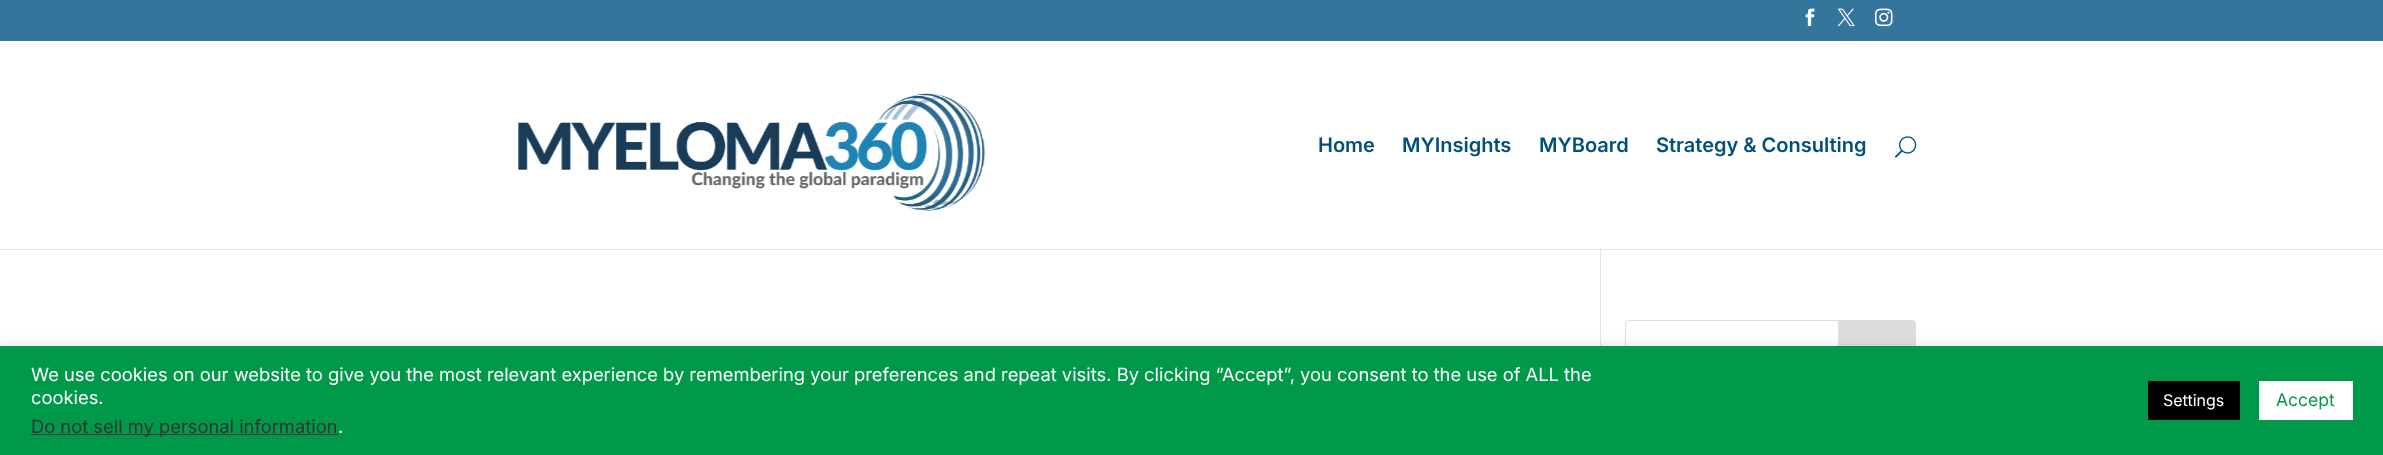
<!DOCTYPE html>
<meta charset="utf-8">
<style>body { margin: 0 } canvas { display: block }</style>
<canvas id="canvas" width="2383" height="455"></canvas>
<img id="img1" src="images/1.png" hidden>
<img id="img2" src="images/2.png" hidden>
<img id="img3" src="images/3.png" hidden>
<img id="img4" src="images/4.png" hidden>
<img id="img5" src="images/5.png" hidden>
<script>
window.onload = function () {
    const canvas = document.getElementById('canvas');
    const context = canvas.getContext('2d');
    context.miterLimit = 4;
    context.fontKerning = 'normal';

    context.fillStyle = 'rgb(255, 255, 255)';
    context.fillRect(0, 0, 2383, 455);
    context.fillStyle = 'rgb(53, 117, 155)';
    context.fillRect(0, 0, 2383, 41);
    context.drawImage(document.getElementById('img1'), 1805, 8, 10, 19);
    context.drawImage(document.getElementById('img2'), 1837, 8, 18, 19);
    context.drawImage(document.getElementById('img3'), 1875, 8, 18, 19);
    context.fillStyle = 'rgb(226, 226, 226)';
    context.fillRect(1600, 248, 1, 98);
    context.fillStyle = 'rgba(0, 0, 0, 0.1)';
    context.beginPath();
    context.moveTo(0, 249);
    context.lineTo(0, 250);
    context.lineTo(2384, 250);
    context.lineTo(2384, 43);
    context.lineTo(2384, 249);
    context.closePath();
    context.fill();
    context.fillStyle = 'rgb(255, 255, 255)';
    context.fillRect(1600, 248, 1, 1);
    context.drawImage(document.getElementById('img4'), 518, 93, 468, 118);
    context.drawImage(document.getElementById('img5'), 1895, 136, 22, 22);
    context.beginPath();
    context.roundRect(1625.5, 320.5, 290, 49, 3.5);
    context.strokeStyle = 'rgb(221, 221, 221)';
    context.stroke();
    context.fillStyle = 'rgb(221, 221, 221)';
    context.beginPath();
    context.roundRect(1838.5, 320.5, 77, 49, [0, 3.5, 3.5, 0]);
    context.fill();
    context.stroke();
    context.fillStyle = 'rgba(172, 171, 171, 0.3)';
    context.filter = 'blur(6px)';
    context.beginPath();
    context.rect(0, 345, 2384, 109);
    context.fill();
    context.filter = 'none';
    context.fillStyle = 'rgb(0, 153, 73)';
    context.fillRect(0, 346, 2383, 109);
    context.fillStyle = 'rgb(51, 51, 51)';
    context.fillRect(31, 434, 307, 1);
    context.fillStyle = 'rgb(0, 0, 0)';
    context.fillRect(2148, 381, 92, 39);
    context.fillStyle = 'rgb(255, 255, 255)';
    context.fillRect(2259, 381, 94, 39);
    context.font = '600 20px Inter';
    context.fillStyle = 'rgb(0, 80, 126)';
    context.fillText('Home', 1318, 152);
    context.fillText('MYInsights', 1402, 152);
    context.fillText('MYBoard', 1539, 152);
    context.fillText('Strategy & Consulting', 1656, 152);
    context.font = '18.33px Inter';
    context.fillStyle = 'rgb(255, 255, 255)';
    context.fillText('We use cookies on our website to give you the most relevant experience by remembering your preferences and repeat visits. By clicking “Accept”, you consent to the use of ALL the', 31, 381);
    context.fillText('cookies.', 31, 404);
    context.fillStyle = 'rgb(51, 51, 51)';
    context.fillText('Do not sell my personal information', 31, 433);
    context.fillStyle = 'rgb(255, 255, 255)';
    context.fillText('.', 338, 433);
    context.font = '16px Inter';
    context.fillText('Settings', 2163, 406);
    context.font = '17.5px Inter';
    context.fillStyle = 'rgb(0, 153, 73)';
    context.fillText('Accept', 2276, 406);
};
</script>
